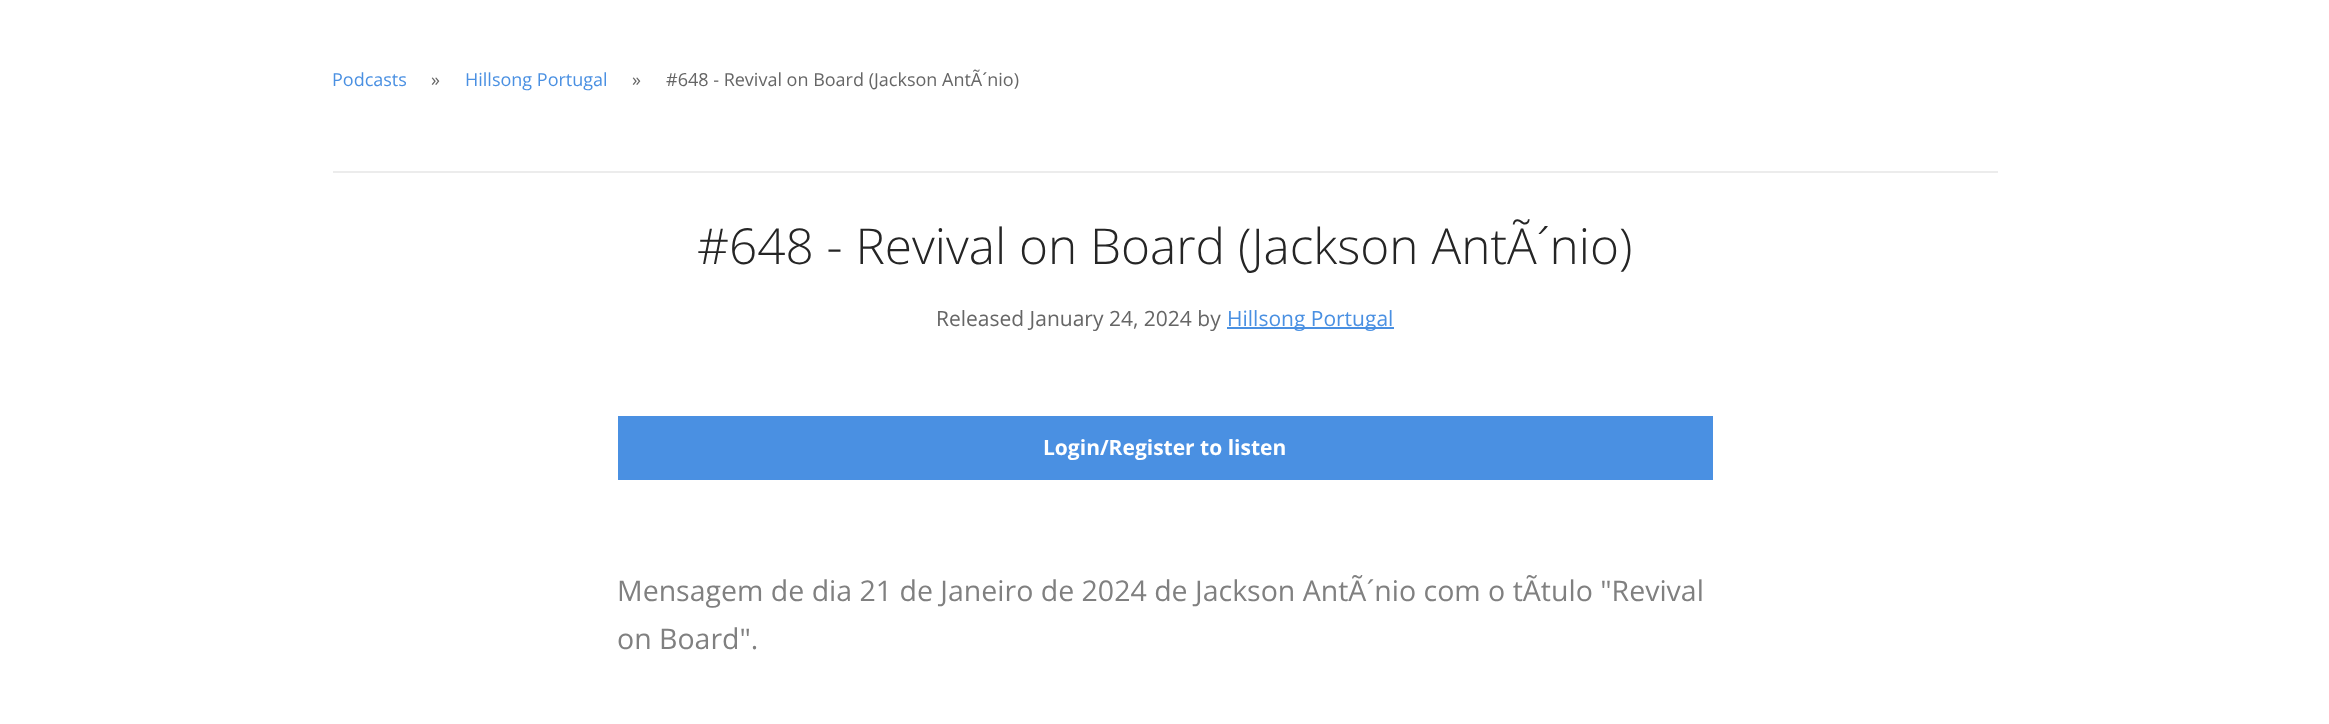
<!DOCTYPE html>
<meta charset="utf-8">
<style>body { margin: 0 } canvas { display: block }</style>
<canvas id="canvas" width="2329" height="724"></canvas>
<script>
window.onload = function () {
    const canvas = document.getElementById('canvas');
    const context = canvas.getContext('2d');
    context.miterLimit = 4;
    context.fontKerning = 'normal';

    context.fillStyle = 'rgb(255, 255, 255)';
    context.fillRect(0, 0, 2329, 724);
    context.fillStyle = 'rgb(236, 236, 236)';
    context.fillRect(333, 171, 1665, 2);
    context.fillStyle = 'rgb(74, 144, 226)';
    context.fillRect(1227, 327, 167, 2);
    context.fillRect(618, 416, 1095, 64);
    context.font = '18px Open Sans';
    context.fillText('Podcasts', 332, 86);
    context.fillStyle = 'rgb(102, 102, 102)';
    context.fillText('»', 431, 86);
    context.fillStyle = 'rgb(74, 144, 226)';
    context.fillText('Hillsong Portugal', 465, 86);
    context.fillStyle = 'rgb(102, 102, 102)';
    context.fillText('»', 632, 86);
    context.fillText('#648 - Revival on Board (Jackson AntÃ´nio)', 666, 86);
    context.font = '300 49.5px Open Sans';
    context.fillStyle = 'rgb(37, 37, 37)';
    context.fillText('#648 - Revival on Board (Jackson AntÃ´nio)', 697, 264);
    context.font = '21px Open Sans';
    context.fillStyle = 'rgb(102, 102, 102)';
    context.fillText('Released January 24, 2024 by', 936, 326);
    context.fillStyle = 'rgb(74, 144, 226)';
    context.fillText('Hillsong Portugal', 1227, 326);
    context.font = 'bold 21px Open Sans';
    context.fillStyle = 'rgb(255, 255, 255)';
    context.fillText('Login/Register to listen', 1043, 455);
    context.font = '28.5px Open Sans';
    context.fillStyle = 'rgb(128, 128, 128)';
    context.fillText('Mensagem de dia 21 de Janeiro de 2024 de Jackson AntÃ´nio com o tÃtulo "Revival', 617, 601);
    context.fillText('on Board".', 617, 649);
};
</script>
